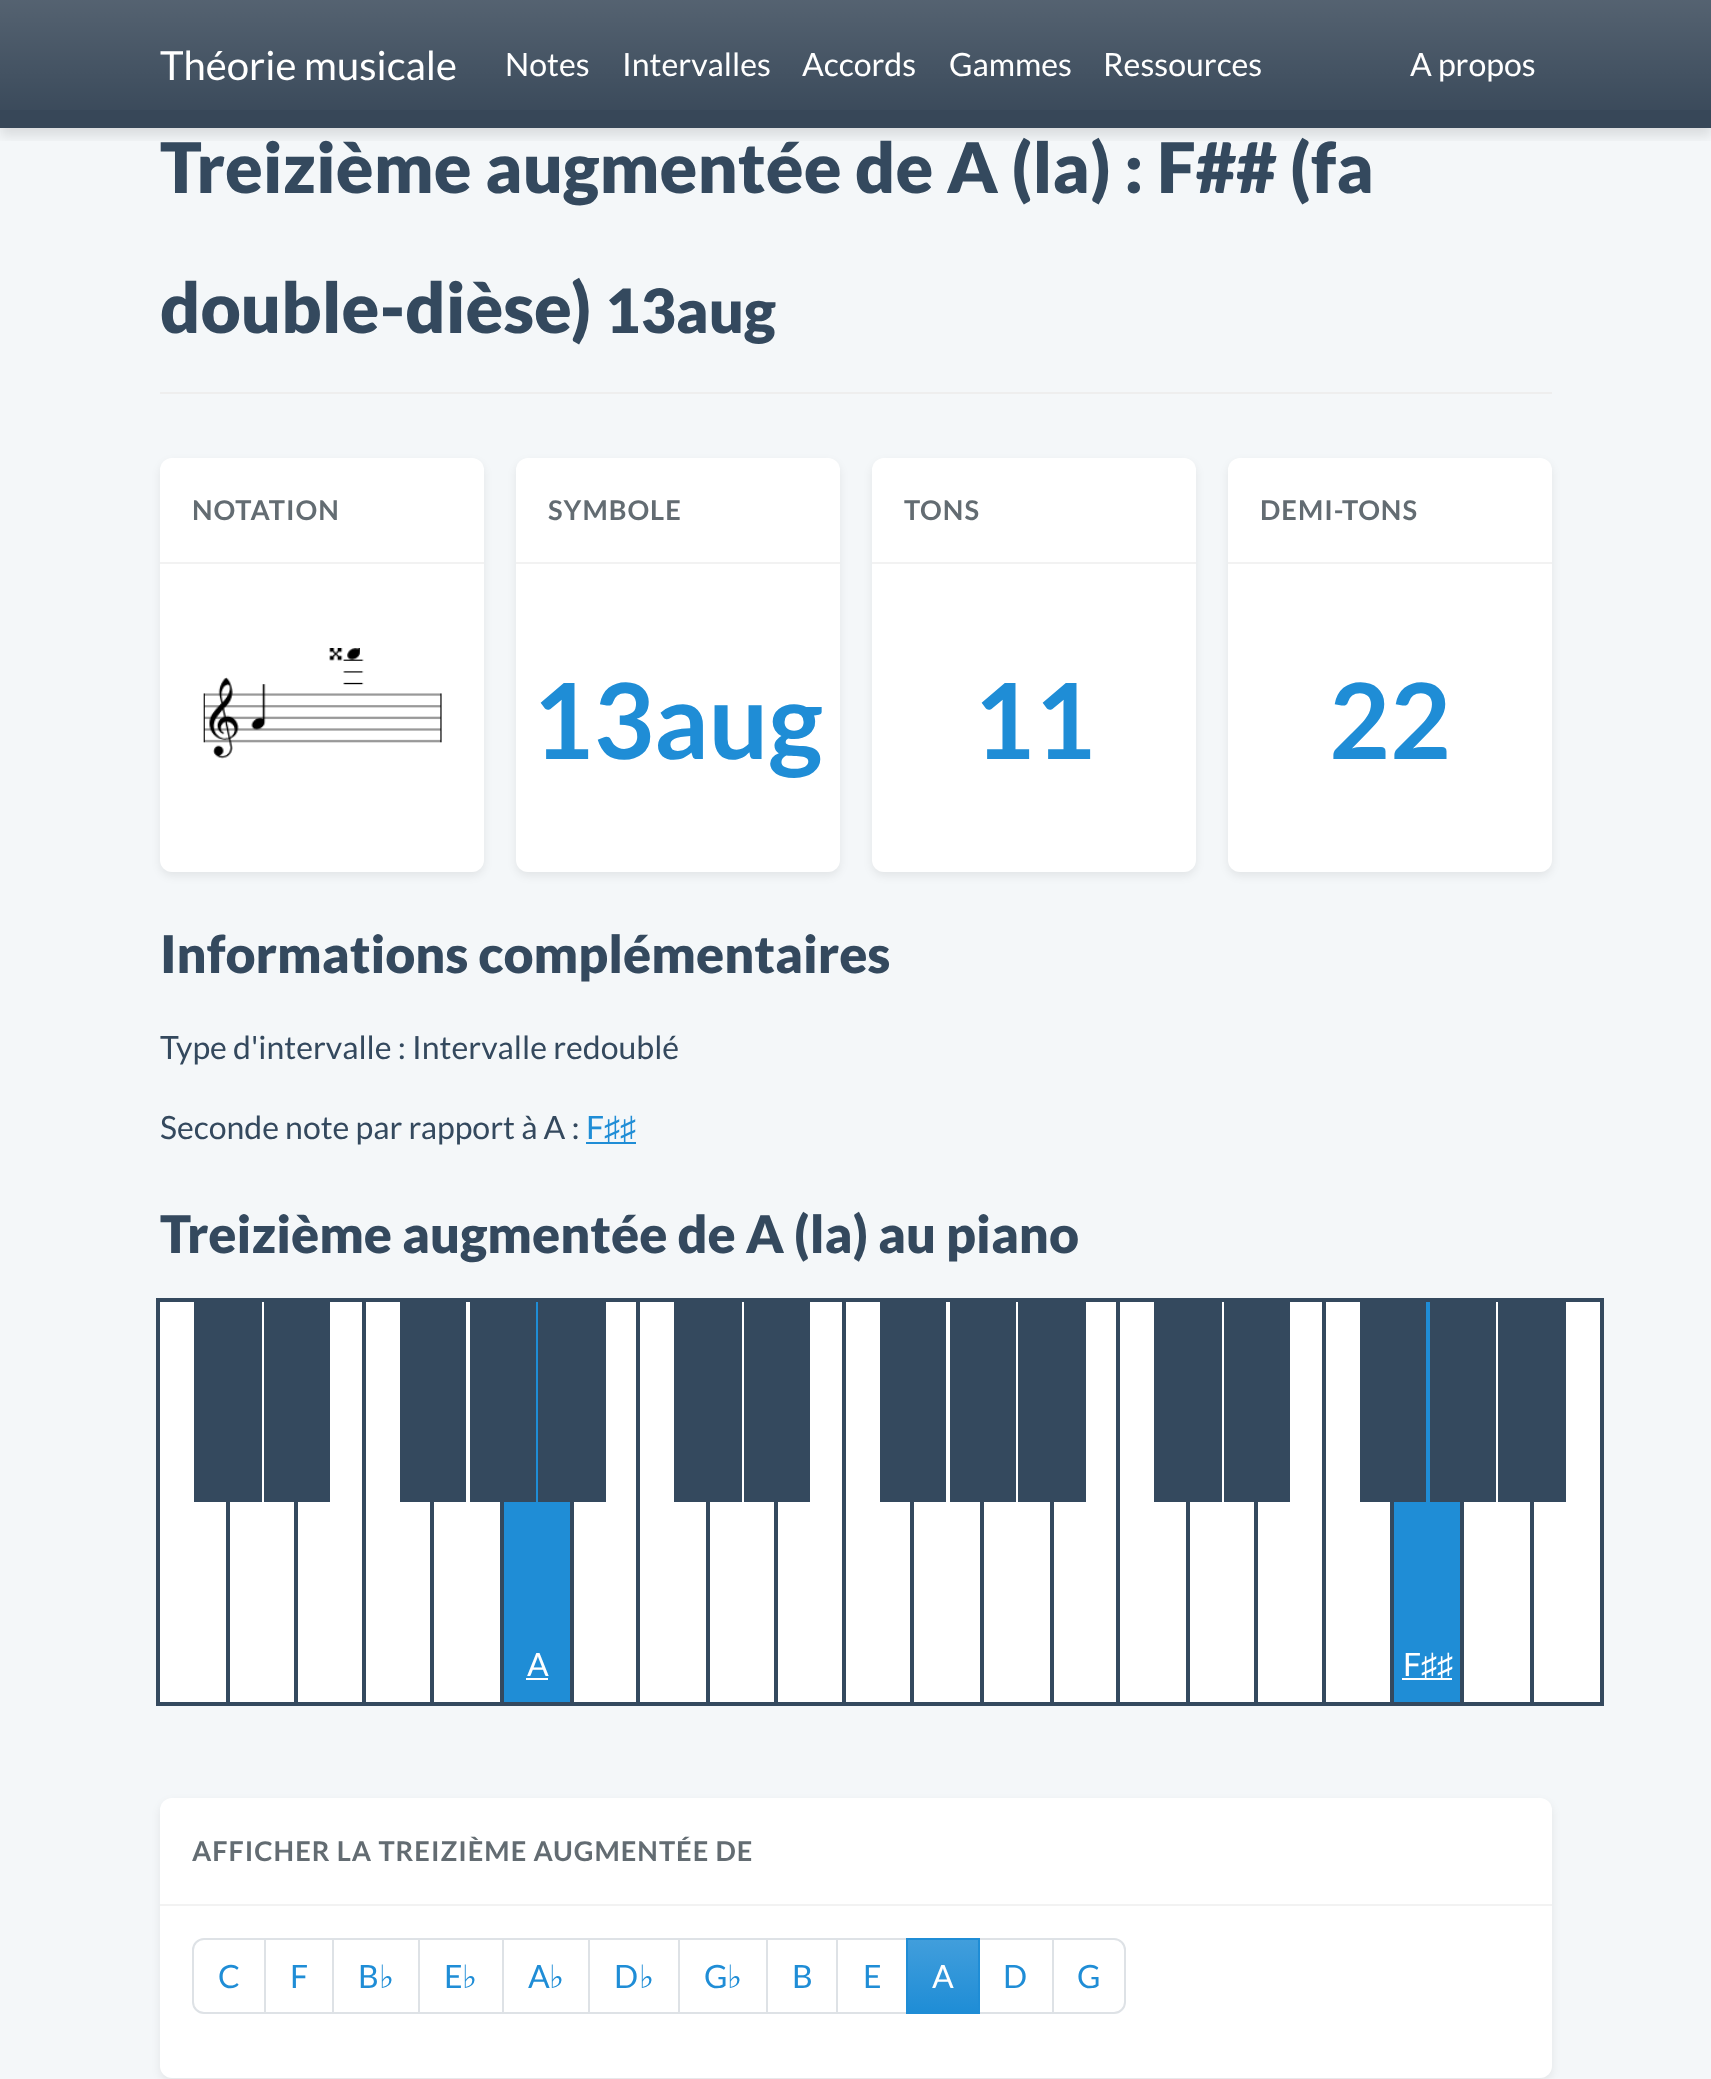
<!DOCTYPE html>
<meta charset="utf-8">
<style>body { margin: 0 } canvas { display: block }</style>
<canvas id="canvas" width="1711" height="2079"></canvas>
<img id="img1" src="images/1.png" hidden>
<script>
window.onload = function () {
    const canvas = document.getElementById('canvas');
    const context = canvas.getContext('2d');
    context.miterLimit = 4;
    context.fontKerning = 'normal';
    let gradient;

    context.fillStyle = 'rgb(244, 247, 249)';
    context.fillRect(0, 0, 1711, 2079);
    context.fillStyle = 'rgb(55, 71, 88)';
    context.fillRect(0, 0, 1711, 128);
    context.save();
    context.beginPath();
    context.rect(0, 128, 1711, 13);
    context.clip();
    context.fillStyle = 'rgba(0, 0, 0, 0.1)';
    context.filter = 'blur(6px)';
    context.beginPath();
    context.rect(0, 8, 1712, 128);
    context.fill();
    context.filter = 'none';
    context.restore();
    gradient = context.createLinearGradient(856, 0, 856, 128);
    gradient.addColorStop(0, 'rgba(255, 255, 255, 0.15)');
    gradient.addColorStop(1, 'rgba(255, 255, 255, 0)');
    context.fillStyle = gradient;
    context.fillRect(0, 0, 1711, 110);
    context.fillStyle = 'rgb(238, 238, 238)';
    context.fillRect(160, 392, 1392, 2);
    context.fillStyle = 'rgba(0, 0, 0, 0.07)';
    context.filter = 'blur(4px)';
    context.beginPath();
    context.roundRect(160, 462, 324, 414, 12);
    context.fill();
    context.filter = 'none';
    context.fillStyle = 'rgb(255, 255, 255)';
    context.beginPath();
    context.roundRect(160, 458, 324, 414, 12);
    context.fill();
    context.fillStyle = 'rgb(242, 242, 242)';
    context.fillRect(160, 562, 324, 2);
    context.drawImage(document.getElementById('img1'), 203, 648, 239, 111);
    context.fillStyle = 'rgba(0, 0, 0, 0.07)';
    context.filter = 'blur(4px)';
    context.beginPath();
    context.roundRect(516, 462, 324, 414, 12);
    context.fill();
    context.filter = 'none';
    context.fillStyle = 'rgb(255, 255, 255)';
    context.beginPath();
    context.roundRect(516, 458, 324, 414, 12);
    context.fill();
    context.fillStyle = 'rgb(242, 242, 242)';
    context.fillRect(516, 562, 324, 2);
    context.fillStyle = 'rgba(0, 0, 0, 0.07)';
    context.filter = 'blur(4px)';
    context.beginPath();
    context.roundRect(872, 462, 324, 414, 12);
    context.fill();
    context.filter = 'none';
    context.fillStyle = 'rgb(255, 255, 255)';
    context.beginPath();
    context.roundRect(872, 458, 324, 414, 12);
    context.fill();
    context.fillStyle = 'rgb(242, 242, 242)';
    context.fillRect(872, 562, 324, 2);
    context.fillStyle = 'rgba(0, 0, 0, 0.07)';
    context.filter = 'blur(4px)';
    context.beginPath();
    context.roundRect(1228, 462, 324, 414, 12);
    context.fill();
    context.filter = 'none';
    context.fillStyle = 'rgb(255, 255, 255)';
    context.beginPath();
    context.roundRect(1228, 458, 324, 414, 12);
    context.fill();
    context.fillStyle = 'rgb(242, 242, 242)';
    context.fillRect(1228, 562, 324, 2);
    context.fillStyle = 'rgb(31, 141, 214)';
    context.fillRect(586, 1142, 50, 2);
    context.fillStyle = 'rgb(255, 255, 255)';
    context.beginPath();
    context.rect(158, 1300, 70, 404);
    context.fill();
    context.strokeStyle = 'rgb(52, 73, 94)';
    context.lineWidth = 4;
    context.stroke();
    context.fillRect(230, 1302, 64, 400);
    context.strokeRect(228, 1300, 70, 404);
    context.fillRect(298, 1302, 64, 400);
    context.strokeRect(296, 1300, 72, 404);
    context.fillRect(366, 1302, 64, 400);
    context.strokeRect(364, 1300, 70, 404);
    context.fillRect(434, 1302, 66, 400);
    context.strokeRect(432, 1300, 72, 404);
    context.fillRect(574, 1302, 62, 400);
    context.fillStyle = 'rgb(31, 141, 214)';
    context.fillRect(504, 1302, 66, 400);
    context.fillStyle = 'rgb(255, 255, 255)';
    context.fillRect(526, 1678, 22, 2);
    context.strokeRect(502, 1300, 70, 404);
    context.strokeRect(572, 1300, 70, 404);
    context.beginPath();
    context.rect(638, 1300, 70, 404);
    context.fill();
    context.stroke();
    context.fillRect(710, 1302, 64, 400);
    context.strokeRect(708, 1300, 70, 404);
    context.fillRect(778, 1302, 64, 400);
    context.strokeRect(776, 1300, 72, 404);
    context.fillRect(846, 1302, 64, 400);
    context.strokeRect(844, 1300, 70, 404);
    context.fillRect(914, 1302, 66, 400);
    context.strokeRect(912, 1300, 72, 404);
    context.beginPath();
    context.rect(982, 1300, 70, 404);
    context.fill();
    context.stroke();
    context.fillRect(1054, 1302, 62, 400);
    context.strokeRect(1052, 1300, 70, 404);
    context.beginPath();
    context.rect(1118, 1300, 70, 404);
    context.fill();
    context.stroke();
    context.fillRect(1190, 1302, 64, 400);
    context.strokeRect(1188, 1300, 70, 404);
    context.fillRect(1258, 1302, 64, 400);
    context.strokeRect(1256, 1300, 72, 404);
    context.fillRect(1326, 1302, 64, 400);
    context.strokeRect(1324, 1300, 70, 404);
    context.fillStyle = 'rgb(31, 141, 214)';
    context.fillRect(1394, 1302, 66, 400);
    context.fillStyle = 'rgb(255, 255, 255)';
    context.fillRect(1402, 1678, 50, 2);
    context.strokeRect(1392, 1300, 72, 404);
    context.beginPath();
    context.rect(1462, 1300, 70, 404);
    context.fill();
    context.stroke();
    context.beginPath();
    context.rect(1532, 1300, 70, 404);
    context.fill();
    context.stroke();
    context.fillStyle = 'rgb(52, 73, 94)';
    context.fillRect(194, 1302, 68, 200);
    context.fillRect(264, 1302, 66, 200);
    context.fillRect(400, 1302, 66, 200);
    context.fillRect(470, 1302, 66, 200);
    context.fillRect(538, 1302, 68, 200);
    context.fillRect(674, 1302, 68, 200);
    context.fillRect(744, 1302, 66, 200);
    context.fillRect(880, 1302, 66, 200);
    context.fillRect(950, 1302, 66, 200);
    context.fillRect(1018, 1302, 68, 200);
    context.fillRect(1154, 1302, 68, 200);
    context.fillRect(1224, 1302, 66, 200);
    context.fillRect(1360, 1302, 66, 200);
    context.fillRect(1430, 1302, 66, 200);
    context.fillRect(1498, 1302, 68, 200);
    context.fillStyle = 'rgba(0, 0, 0, 0.07)';
    context.filter = 'blur(4px)';
    context.beginPath();
    context.roundRect(160, 1802, 1392, 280, 12);
    context.fill();
    context.filter = 'none';
    context.fillStyle = 'rgb(255, 255, 255)';
    context.beginPath();
    context.roundRect(160, 1798, 1392, 280, 12);
    context.fill();
    context.fillStyle = 'rgb(242, 242, 242)';
    context.fillRect(160, 1904, 1392, 2);
    context.beginPath();
    context.roundRect(193, 1939, 72, 74, [11, 0, 0, 11]);
    context.strokeStyle = 'rgb(222, 226, 230)';
    context.lineWidth = 2;
    context.stroke();
    context.strokeRect(265, 1939, 68, 74);
    context.strokeRect(333, 1939, 86, 74);
    context.strokeRect(419, 1939, 84, 74);
    context.strokeRect(503, 1939, 86, 74);
    context.strokeRect(589, 1939, 90, 74);
    context.strokeRect(679, 1939, 88, 74);
    context.strokeRect(767, 1939, 70, 74);
    context.strokeRect(837, 1939, 70, 74);
    gradient = context.createLinearGradient(943, 1940, 943, 2012);
    gradient.addColorStop(0, 'rgb(65, 158, 220)');
    gradient.addColorStop(1, 'rgb(31, 141, 214)');
    context.fillStyle = gradient;
    context.fillRect(908, 1940, 70, 72);
    context.strokeRect(979, 1939, 74, 74);
    context.strokeStyle = 'rgb(31, 141, 214)';
    context.strokeRect(907, 1939, 72, 74);
    context.fillStyle = 'rgb(255, 255, 255)';
    context.beginPath();
    context.roundRect(1053, 1939, 72, 74, [0, 11, 11, 0]);
    context.fill();
    context.strokeStyle = 'rgb(222, 226, 230)';
    context.stroke();
    context.font = '40px Lato';
    context.fillText('Théorie musicale', 160, 80);
    context.font = '32px Lato';
    context.fillText('Notes', 505, 76);
    context.fillText('Intervalles', 622, 76);
    context.fillText('Accords', 802, 76);
    context.fillText('Gammes', 949, 76);
    context.fillText('Ressources', 1103, 76);
    context.fillText('A propos', 1410, 76);
    context.font = '900 69.7px Lato';
    context.fillStyle = 'rgb(52, 73, 94)';
    context.fillText('Treizième augmentée de A (la) : F## (fa', 160, 193);
    context.fillText('double-dièse)', 160, 333);
    context.font = '900 61px Lato';
    context.fillText('13aug', 605, 333);
    context.letterSpacing = '1px';
    context.font = 'bold 27.2px Lato';
    context.fillStyle = 'rgb(99, 108, 114)';
    context.fillText('NOTATION', 192, 520);
    context.fillText('SYMBOLE', 548, 520);
    context.letterSpacing = '0px';
    context.font = 'bold 105px Lato';
    context.fillStyle = 'rgb(31, 141, 214)';
    context.fillText('13aug', 532, 759);
    context.letterSpacing = '1px';
    context.font = 'bold 27.2px Lato';
    context.fillStyle = 'rgb(99, 108, 114)';
    context.fillText('TONS', 904, 520);
    context.letterSpacing = '0px';
    context.font = 'bold 105px Lato';
    context.fillStyle = 'rgb(31, 141, 214)';
    context.fillText('11', 973, 759);
    context.letterSpacing = '1px';
    context.font = 'bold 27.2px Lato';
    context.fillStyle = 'rgb(99, 108, 114)';
    context.fillText('DEMI-TONS', 1260, 520);
    context.letterSpacing = '0px';
    context.font = 'bold 105px Lato';
    context.fillStyle = 'rgb(31, 141, 214)';
    context.fillText('22', 1329, 759);
    context.font = '900 51.9px Lato';
    context.fillStyle = 'rgb(52, 73, 94)';
    context.fillText('Informations complémentaires', 160, 973);
    context.font = '32px Lato';
    context.fillText('Type d\'intervalle : Intervalle redoublé', 160, 1059);
    context.fillText('Seconde note par rapport à A :', 160, 1139);
    context.fillStyle = 'rgb(31, 141, 214)';
    context.fillText('F', 586, 1139);
    context.font = '32px Liberation Sans';
    context.fillText('♯♯', 604, 1139);
    context.font = '900 51.9px Lato';
    context.fillStyle = 'rgb(52, 73, 94)';
    context.fillText('Treizième augmentée de A (la) au piano', 160, 1253);
    context.font = '32px Lato';
    context.fillStyle = 'rgb(255, 255, 255)';
    context.fillText('A', 527, 1676);
    context.fillText('F', 1403, 1676);
    context.font = '32px Liberation Sans';
    context.fillText('♯♯', 1421, 1676);
    context.letterSpacing = '1px';
    context.font = 'bold 27.2px Lato';
    context.fillStyle = 'rgb(99, 108, 114)';
    context.fillText('AFFICHER LA TREIZIÈME AUGMENTÉE DE', 192, 1861);
    context.letterSpacing = '0px';
    context.font = '32px Lato';
    context.fillStyle = 'rgb(31, 141, 214)';
    context.fillText('C', 218, 1988);
    context.fillText('F', 290, 1988);
    context.fillText('B', 358, 1988);
    context.font = '32px DejaVu Sans';
    context.fillText('♭', 379, 1988);
    context.font = '32px Lato';
    context.fillText('E', 444, 1988);
    context.font = '32px DejaVu Sans';
    context.fillText('♭', 462, 1988);
    context.font = '32px Lato';
    context.fillText('A', 528, 1988);
    context.font = '32px DejaVu Sans';
    context.fillText('♭', 549, 1988);
    context.font = '32px Lato';
    context.fillText('D', 614, 1988);
    context.font = '32px DejaVu Sans';
    context.fillText('♭', 639, 1988);
    context.font = '32px Lato';
    context.fillText('G', 704, 1988);
    context.font = '32px DejaVu Sans';
    context.fillText('♭', 727, 1988);
    context.font = '32px Lato';
    context.fillText('B', 792, 1988);
    context.fillText('E', 863, 1988);
    context.fillStyle = 'rgb(255, 255, 255)';
    context.fillText('A', 932, 1988);
    context.fillStyle = 'rgb(31, 141, 214)';
    context.fillText('D', 1003, 1988);
    context.fillText('G', 1077, 1988);
};
</script>
